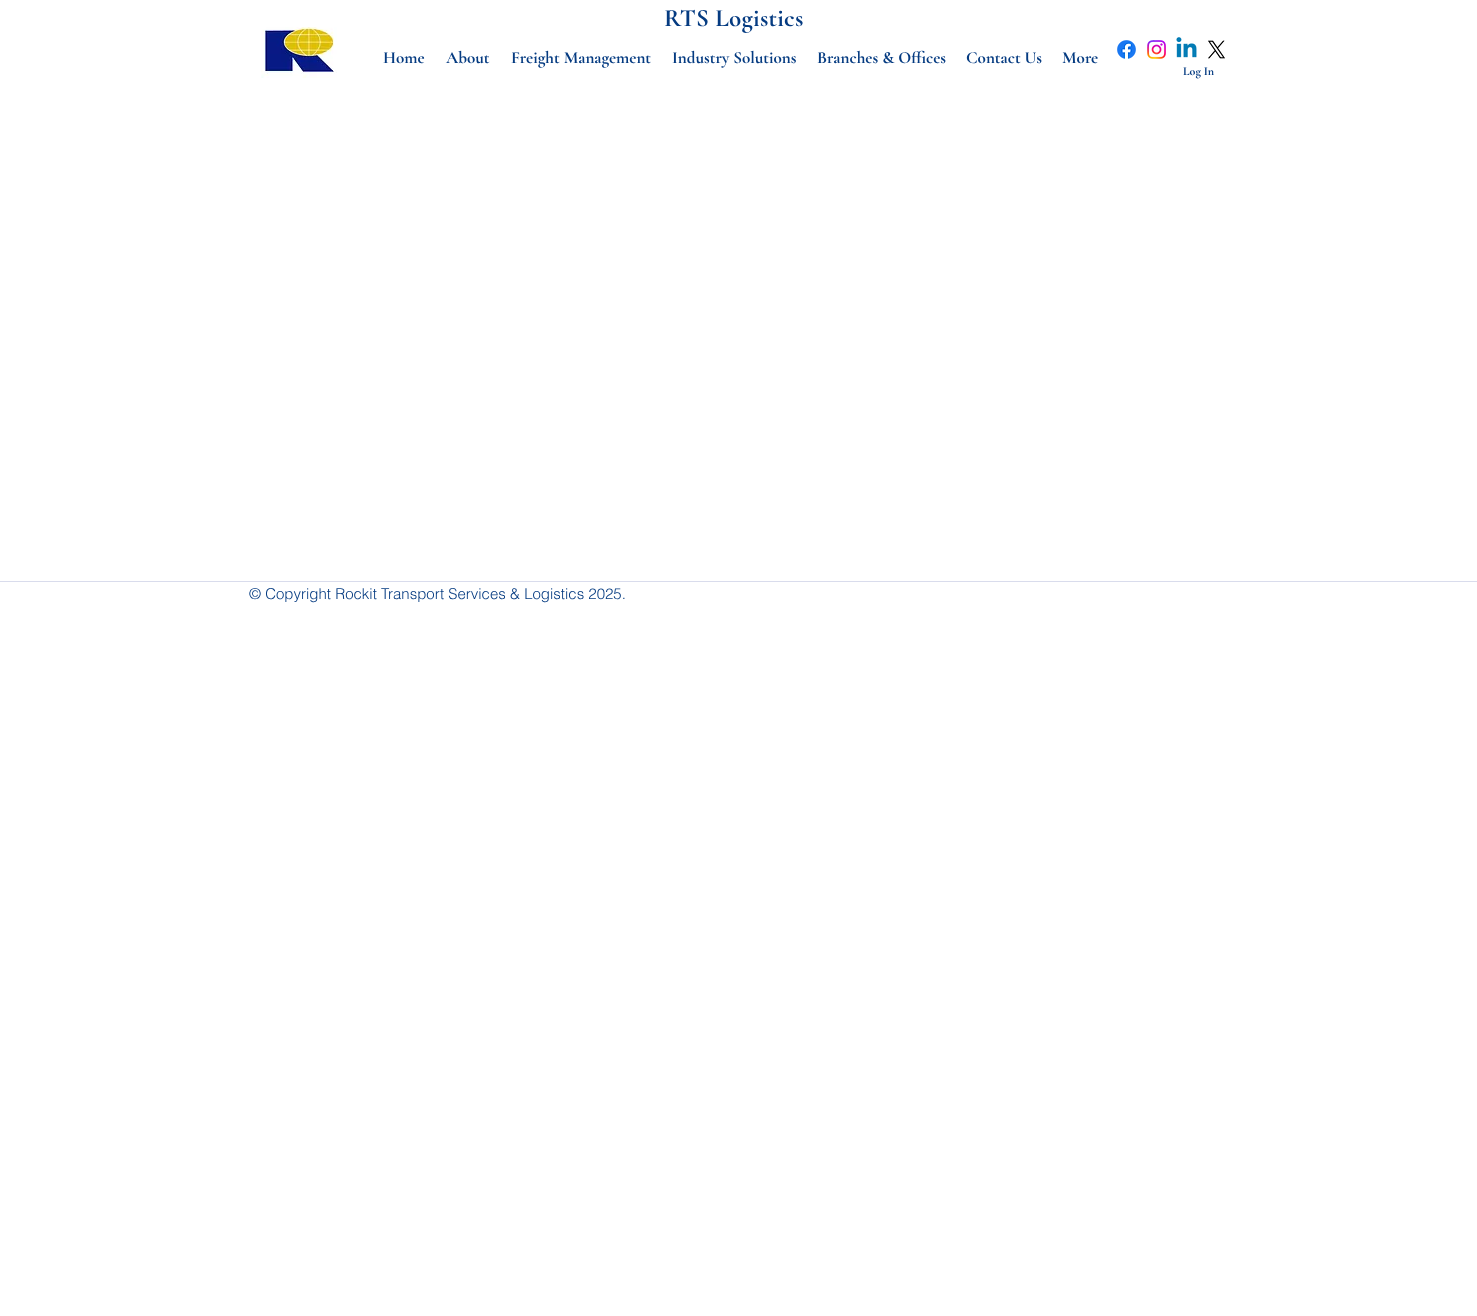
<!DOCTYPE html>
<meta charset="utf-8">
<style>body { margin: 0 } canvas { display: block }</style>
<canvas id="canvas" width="1477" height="1316"></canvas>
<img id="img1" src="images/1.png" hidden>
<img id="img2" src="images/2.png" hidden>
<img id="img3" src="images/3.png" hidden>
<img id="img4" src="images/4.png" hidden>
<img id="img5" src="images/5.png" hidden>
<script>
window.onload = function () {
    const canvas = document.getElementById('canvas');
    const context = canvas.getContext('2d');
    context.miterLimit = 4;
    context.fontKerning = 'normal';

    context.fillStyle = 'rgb(255, 255, 255)';
    context.fillRect(0, 0, 1477, 1316);
    context.drawImage(document.getElementById('img1'), 261, 27, 76, 51);
    context.drawImage(document.getElementById('img2'), 1117, 40, 19, 19);
    context.drawImage(document.getElementById('img3'), 1147, 40, 19, 19);
    context.drawImage(document.getElementById('img4'), 1176, 37, 21, 21);
    context.drawImage(document.getElementById('img5'), 1208, 40, 17, 19);
    context.fillStyle = 'rgb(217, 220, 236)';
    context.fillRect(0, 581, 1477, 1);
    context.letterSpacing = '0.25px';
    context.font = 'bold 25px Cormorant Garamond';
    context.fillStyle = 'rgb(5, 59, 129)';
    context.fillText('RTS Logistics', 664, 26);
    context.letterSpacing = '0px';
    context.font = 'bold 17px Cormorant Garamond';
    context.fillText('Home', 383, 63);
    context.fillText('About', 446, 63);
    context.fillText('Freight Management', 511, 63);
    context.fillText('Industry Solutions', 672, 63);
    context.fillText('Branches & Offices', 817, 63);
    context.fillText('Contact Us', 966, 63);
    context.fillText('More', 1062, 63);
    context.font = 'bold 12px Cormorant Garamond';
    context.fillText('Log In', 1183, 75);
    context.font = '300 15px helvetica';
    context.fillText('© Copyright Rockit Transport Services & Logistics 2025.', 249, 599);
};
</script>
